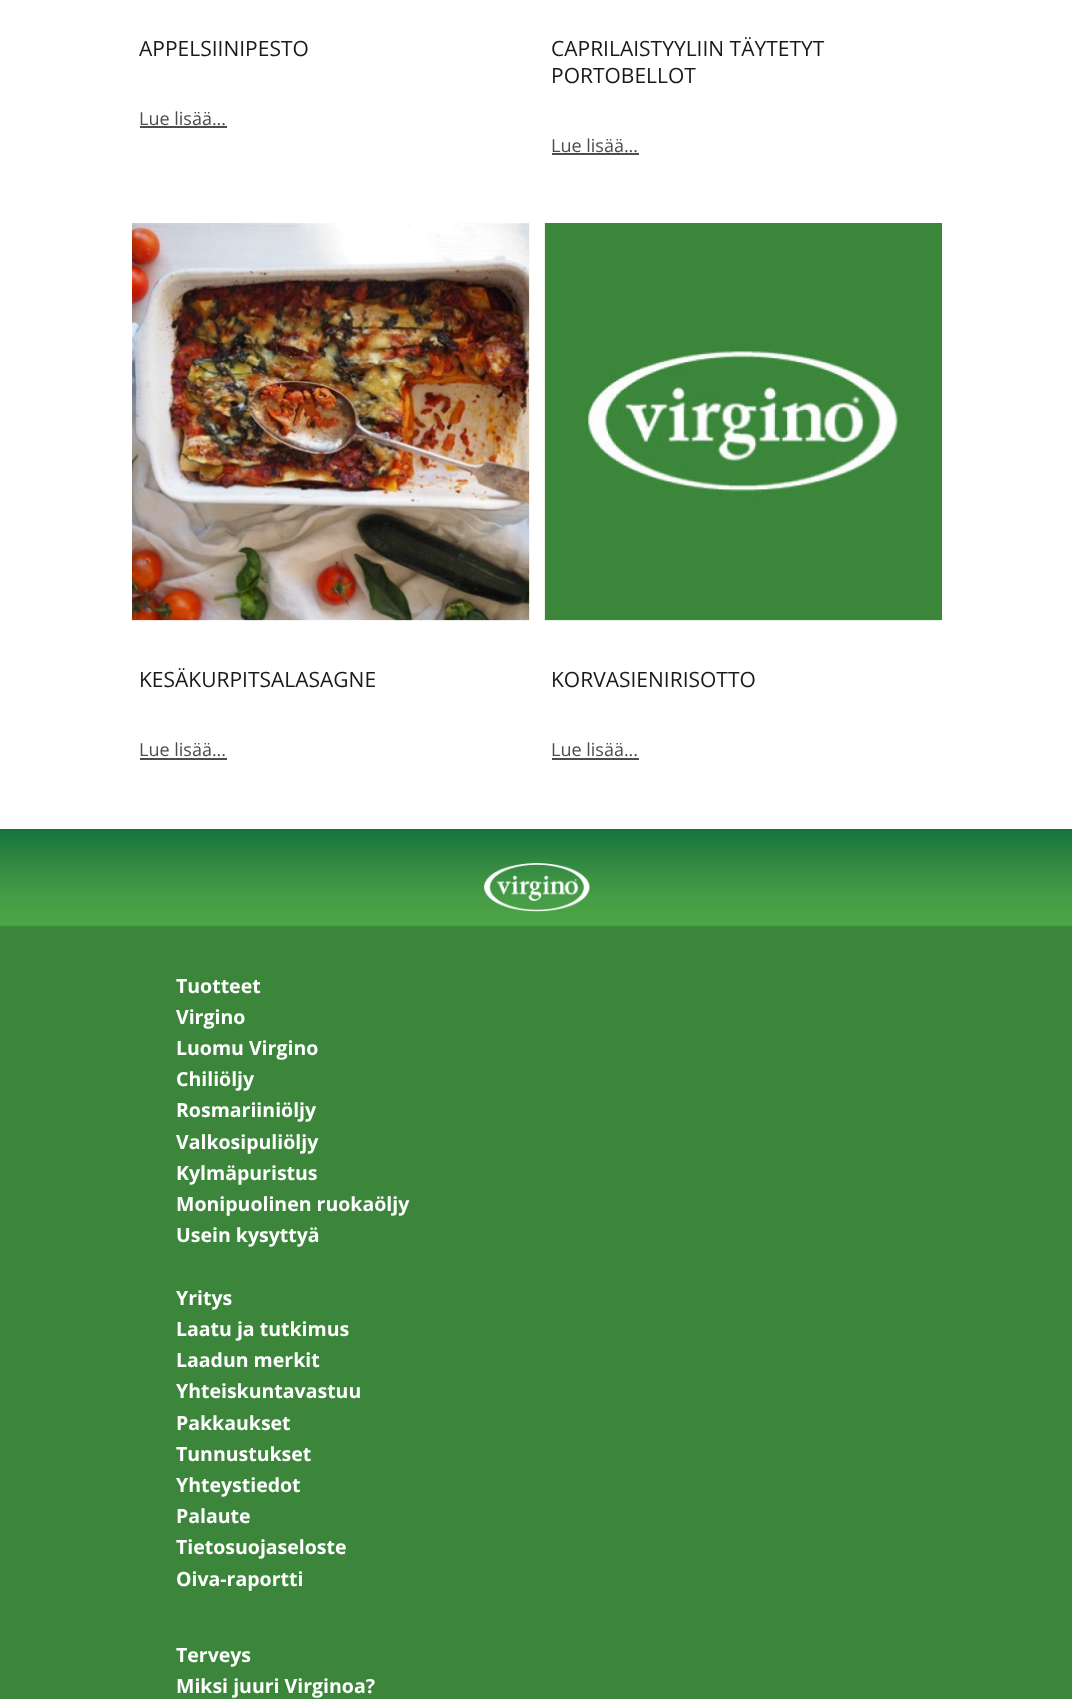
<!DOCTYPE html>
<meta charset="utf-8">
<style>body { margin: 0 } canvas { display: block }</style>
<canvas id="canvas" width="1072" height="1699"></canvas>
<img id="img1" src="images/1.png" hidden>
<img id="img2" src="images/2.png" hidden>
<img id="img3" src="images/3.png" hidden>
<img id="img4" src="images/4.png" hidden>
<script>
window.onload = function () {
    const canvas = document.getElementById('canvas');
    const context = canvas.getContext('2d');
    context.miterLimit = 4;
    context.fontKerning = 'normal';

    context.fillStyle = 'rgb(255, 255, 255)';
    context.fillRect(0, 0, 1072, 1699);
    context.fillStyle = 'rgb(77, 77, 77)';
    context.fillRect(140, 126, 87, 2);
    context.fillRect(552, 153, 87, 2);
    context.drawImage(document.getElementById('img1'), 132, 223, 398, 398);
    context.fillRect(140, 758, 87, 2);
    context.drawImage(document.getElementById('img2'), 544, 223, 398, 398);
    context.fillRect(552, 758, 87, 2);
    context.drawImage(document.getElementById('img3'), 0, 829, 1072, 870);
    context.drawImage(document.getElementById('img4'), 484, 863, 106, 49);
    context.font = '21px Open Sans';
    context.fillStyle = 'rgb(26, 26, 26)';
    context.fillText('APPELSIINIPESTO', 139, 56);
    context.font = '18px Open Sans';
    context.fillStyle = 'rgb(77, 77, 77)';
    context.fillText('Lue lisää...', 139, 125);
    context.font = '21px Open Sans';
    context.fillStyle = 'rgb(26, 26, 26)';
    context.fillText('CAPRILAISTYYLIIN TÄYTETYT', 551, 56);
    context.fillText('PORTOBELLOT', 551, 83);
    context.font = '18px Open Sans';
    context.fillStyle = 'rgb(77, 77, 77)';
    context.fillText('Lue lisää...', 551, 152);
    context.font = '21px Open Sans';
    context.fillStyle = 'rgb(26, 26, 26)';
    context.fillText('KESÄKURPITSALASAGNE', 139, 687);
    context.font = '18px Open Sans';
    context.fillStyle = 'rgb(77, 77, 77)';
    context.fillText('Lue lisää...', 139, 756);
    context.font = '21px Open Sans';
    context.fillStyle = 'rgb(26, 26, 26)';
    context.fillText('KORVASIENIRISOTTO', 551, 687);
    context.font = '18px Open Sans';
    context.fillStyle = 'rgb(77, 77, 77)';
    context.fillText('Lue lisää...', 551, 756);
    context.font = 'bold 19.5px Open Sans';
    context.fillStyle = 'rgb(255, 255, 255)';
    context.fillText('Tuotteet', 176, 993);
    context.fillText('Virgino', 176, 1024);
    context.fillText('Luomu Virgino', 176, 1055);
    context.fillText('Chiliöljy', 176, 1086);
    context.fillText('Rosmariiniöljy', 176, 1117);
    context.fillText('Valkosipuliöljy', 176, 1149);
    context.fillText('Kylmäpuristus', 176, 1180);
    context.fillText('Monipuolinen ruokaöljy', 176, 1211);
    context.fillText('Usein kysyttyä', 176, 1242);
    context.fillText('Yritys', 176, 1305);
    context.fillText('Laatu ja tutkimus', 176, 1336);
    context.fillText('Laadun merkit', 176, 1367);
    context.fillText('Yhteiskuntavastuu', 176, 1398);
    context.fillText('Pakkaukset', 176, 1430);
    context.fillText('Tunnustukset', 176, 1461);
    context.fillText('Yhteystiedot', 176, 1492);
    context.fillText('Palaute', 176, 1523);
    context.fillText('Tietosuojaseloste', 176, 1554);
    context.fillText('Oiva-raportti', 176, 1586);
    context.fillText('Terveys', 176, 1662);
    context.fillText('Miksi juuri Virginoa?', 176, 1693);
};
</script>
